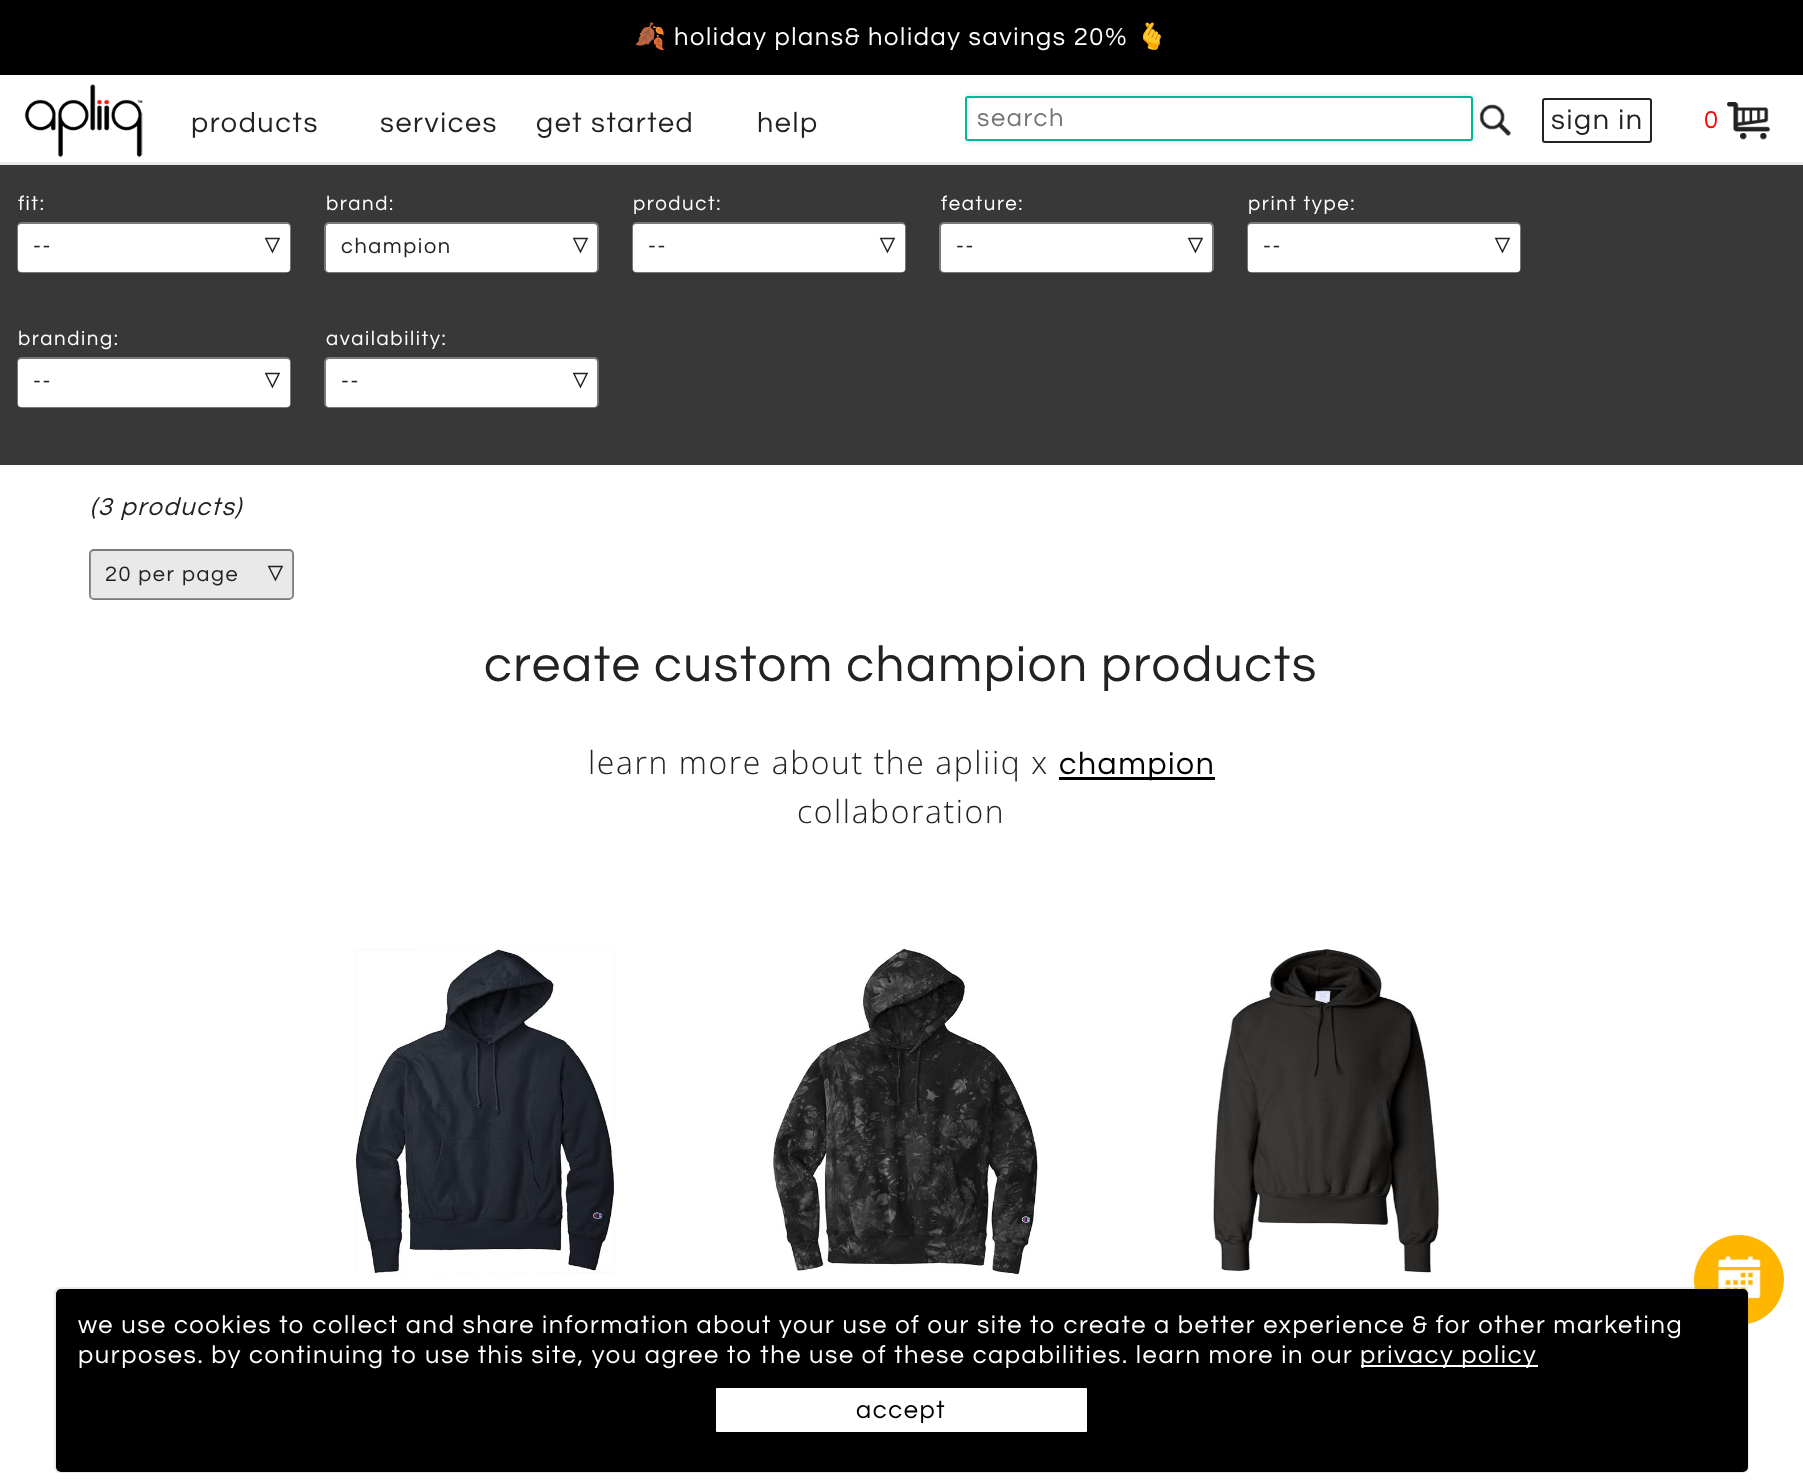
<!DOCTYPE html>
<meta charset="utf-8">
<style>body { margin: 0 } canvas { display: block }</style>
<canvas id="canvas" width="1803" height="1482"></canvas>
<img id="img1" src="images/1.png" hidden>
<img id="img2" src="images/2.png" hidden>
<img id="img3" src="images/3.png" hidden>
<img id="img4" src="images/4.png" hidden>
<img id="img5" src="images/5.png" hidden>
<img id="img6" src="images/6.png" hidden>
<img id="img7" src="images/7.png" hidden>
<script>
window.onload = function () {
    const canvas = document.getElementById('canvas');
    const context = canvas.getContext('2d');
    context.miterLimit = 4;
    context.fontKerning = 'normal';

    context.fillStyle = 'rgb(255, 255, 255)';
    context.fillRect(0, 0, 1803, 1482);
    context.fillStyle = 'rgb(0, 0, 0)';
    context.fillRect(0, 0, 1803, 75);
    context.fillStyle = 'rgb(235, 235, 235)';
    context.fillRect(0, 162, 1803, 3);
    context.drawImage(document.getElementById('img1'), 24, 84, 119, 74);
    context.save();
    context.beginPath();
    context.roundRect(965, 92, 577, 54, 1.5);
    context.clip();
    context.fillStyle = 'rgba(185, 185, 185, 0.46)';
    context.filter = 'blur(4px)';
    context.beginPath();
    context.roundRect(965, 96, 508, 45, 3);
    context.fill();
    context.filter = 'none';
    context.restore();
    context.fillStyle = 'rgb(255, 255, 255)';
    context.beginPath();
    context.roundRect(966, 97, 506, 43, 2);
    context.fill();
    context.strokeStyle = 'rgb(0, 183, 152)';
    context.lineWidth = 2;
    context.stroke();
    context.drawImage(document.getElementById('img2'), 1479, 104, 33, 32);
    context.beginPath();
    context.roundRect(1543, 99, 108, 43, 2);
    context.strokeStyle = 'rgb(34, 34, 34)';
    context.stroke();
    context.drawImage(document.getElementById('img3'), 1727, 102, 43, 38);
    context.fillStyle = 'rgb(56, 56, 56)';
    context.fillRect(0, 165, 1803, 300);
    context.beginPath();
    context.roundRect(18, 223, 272, 49, 4);
    context.strokeStyle = 'rgb(121, 121, 121)';
    context.stroke();
    context.fillStyle = 'rgb(255, 255, 255)';
    context.beginPath();
    context.roundRect(18, 224, 272, 48, 3);
    context.fill();
    context.beginPath();
    context.roundRect(325, 223, 273, 49, 4);
    context.stroke();
    context.beginPath();
    context.roundRect(326, 224, 271, 48, 3);
    context.fill();
    context.beginPath();
    context.roundRect(633, 223, 272, 49, 4);
    context.stroke();
    context.beginPath();
    context.roundRect(633, 224, 272, 48, 3);
    context.fill();
    context.beginPath();
    context.roundRect(940, 223, 273, 49, 4);
    context.stroke();
    context.beginPath();
    context.roundRect(941, 224, 271, 48, 3);
    context.fill();
    context.beginPath();
    context.roundRect(1248, 223, 272, 49, 4);
    context.stroke();
    context.beginPath();
    context.roundRect(1248, 224, 272, 48, 3);
    context.fill();
    context.beginPath();
    context.roundRect(18, 358, 272, 49, 4);
    context.stroke();
    context.beginPath();
    context.roundRect(18, 359, 272, 48, 3);
    context.fill();
    context.beginPath();
    context.roundRect(325, 358, 273, 49, 4);
    context.stroke();
    context.beginPath();
    context.roundRect(326, 359, 271, 48, 3);
    context.fill();
    context.beginPath();
    context.roundRect(90, 550, 203, 49, 4);
    context.stroke();
    context.fillStyle = 'rgba(192, 192, 192, 0.35)';
    context.beginPath();
    context.roundRect(90, 551, 203, 48, 3);
    context.fill();
    context.fillStyle = 'rgb(0, 0, 0)';
    context.fillRect(1059, 777, 156, 3);
    context.drawImage(document.getElementById('img4'), 355, 948, 261, 326);
    context.drawImage(document.getElementById('img5'), 773, 948, 265, 327);
    context.drawImage(document.getElementById('img6'), 1213, 949, 226, 325);
    context.fillStyle = 'rgb(255, 182, 0)';
    context.beginPath();
    context.arc(1739, 1280, 45, 0, 2 * Math.PI);
    context.fill();
    context.drawImage(document.getElementById('img7'), 1714, 1255, 50, 45);
    context.beginPath();
    context.roundRect(55, 1288, 1693, 184, 5);
    context.strokeStyle = 'rgba(160, 160, 160, 0.22)';
    context.stroke();
    context.fillStyle = 'rgb(0, 0, 0)';
    context.beginPath();
    context.roundRect(56, 1289, 1692, 183, 5);
    context.fill();
    context.fillStyle = 'rgb(255, 255, 255)';
    context.fillRect(1361, 1365, 177, 2);
    context.beginPath();
    context.roundRect(715, 1387, 373, 46, 2);
    context.fill();
    context.strokeStyle = 'rgb(0, 0, 0)';
    context.stroke();
    context.letterSpacing = '1.59px';
    context.font = '25.5px Noto Color Emoji';
    context.fillText('🍂', 634, 45);
    context.font = '25.5px Questrial';
    context.fillText('holiday plans& holiday savings 20%', 674, 45);
    context.font = '25.5px Noto Color Emoji';
    context.fillText('🫰', 1136, 45);
    context.font = '28.75px Questrial';
    context.fillStyle = 'rgb(34, 34, 34)';
    context.fillText('products', 191, 132);
    context.fillText('services', 380, 132);
    context.fillText('get started', 536, 132);
    context.fillText('help', 757, 132);
    context.font = '25.5px Questrial';
    context.fillStyle = 'rgb(117, 117, 117)';
    context.fillText('search', 977, 126);
    context.font = '28.75px Questrial';
    context.fillStyle = 'rgb(34, 34, 34)';
    context.fillText('sign in', 1551, 129);
    context.font = '25.5px Questrial';
    context.fillStyle = 'rgb(255, 0, 0)';
    context.fillText('0', 1704, 128);
    context.font = '20.5px Questrial';
    context.fillStyle = 'rgb(255, 255, 255)';
    context.fillText('fit:', 18, 210);
    context.font = '21.75px Questrial';
    context.fillStyle = 'rgb(34, 34, 34)';
    context.fillText('--', 33, 253);
    context.font = 'bold 21.75px Questrial';
    context.fillText('▽', 264, 253);
    context.font = '20.5px Questrial';
    context.fillStyle = 'rgb(255, 255, 255)';
    context.fillText('brand:', 326, 210);
    context.font = '21.75px Questrial';
    context.fillStyle = 'rgb(34, 34, 34)';
    context.fillText('champion', 341, 253);
    context.font = 'bold 21.75px Questrial';
    context.fillText('▽', 572, 253);
    context.font = '20.5px Questrial';
    context.fillStyle = 'rgb(255, 255, 255)';
    context.fillText('product:', 633, 210);
    context.font = '21.75px Questrial';
    context.fillStyle = 'rgb(34, 34, 34)';
    context.fillText('--', 648, 253);
    context.font = 'bold 21.75px Questrial';
    context.fillText('▽', 879, 253);
    context.font = '20.5px Questrial';
    context.fillStyle = 'rgb(255, 255, 255)';
    context.fillText('feature:', 941, 210);
    context.font = '21.75px Questrial';
    context.fillStyle = 'rgb(34, 34, 34)';
    context.fillText('--', 956, 253);
    context.font = 'bold 21.75px Questrial';
    context.fillText('▽', 1187, 253);
    context.font = '20.5px Questrial';
    context.fillStyle = 'rgb(255, 255, 255)';
    context.fillText('print type:', 1248, 210);
    context.font = '21.75px Questrial';
    context.fillStyle = 'rgb(34, 34, 34)';
    context.fillText('--', 1263, 253);
    context.font = 'bold 21.75px Questrial';
    context.fillText('▽', 1494, 253);
    context.font = '20.5px Questrial';
    context.fillStyle = 'rgb(255, 255, 255)';
    context.fillText('branding:', 18, 345);
    context.font = '21.75px Questrial';
    context.fillStyle = 'rgb(34, 34, 34)';
    context.fillText('--', 33, 388);
    context.font = 'bold 21.75px Questrial';
    context.fillText('▽', 264, 388);
    context.font = '20.5px Questrial';
    context.fillStyle = 'rgb(255, 255, 255)';
    context.fillText('availability:', 326, 345);
    context.font = '21.75px Questrial';
    context.fillStyle = 'rgb(34, 34, 34)';
    context.fillText('--', 341, 388);
    context.font = 'bold 21.75px Questrial';
    context.fillText('▽', 572, 388);
    context.font = 'italic 25.5px Questrial';
    context.fillText('(3 products)', 90, 515);
    context.font = '21.75px Questrial';
    context.fillText('20 per page', 105, 581);
    context.font = 'bold 21.75px Questrial';
    context.fillText('▽', 267, 581);
    context.font = '51px Questrial';
    context.fillText('create custom champion products', 484, 681);
    context.font = '300 31.9px Open Sans';
    context.fillText('learn more about the apliiq x', 588, 774);
    context.font = '31.9px Questrial';
    context.fillStyle = 'rgb(0, 0, 0)';
    context.fillText('champion', 1059, 774);
    context.font = '300 31.9px Open Sans';
    context.fillStyle = 'rgb(34, 34, 34)';
    context.fillText('collaboration', 797, 823);
    context.font = '25.5px Questrial';
    context.fillStyle = 'rgb(255, 255, 255)';
    context.fillText('we use cookies to collect and share information about your use of our site to create a better experience & for other marketing', 78, 1333);
    context.fillText('purposes. by continuing to use this site, you agree to the use of these capabilities. learn more in our', 78, 1363);
    context.fillText('privacy policy', 1360, 1363);
    context.fillStyle = 'rgb(0, 0, 0)';
    context.fillText('accept', 856, 1418);
};
</script>
